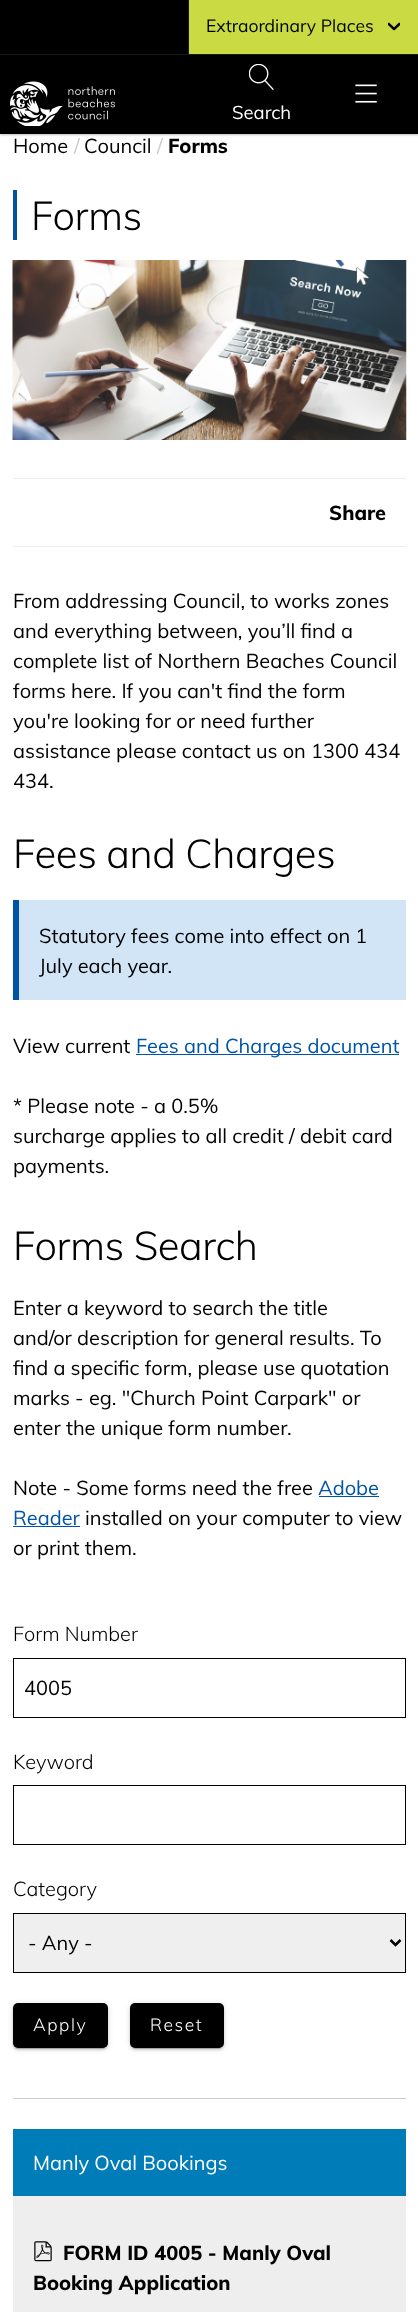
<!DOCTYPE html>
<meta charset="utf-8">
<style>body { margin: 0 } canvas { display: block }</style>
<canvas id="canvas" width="418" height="2312"></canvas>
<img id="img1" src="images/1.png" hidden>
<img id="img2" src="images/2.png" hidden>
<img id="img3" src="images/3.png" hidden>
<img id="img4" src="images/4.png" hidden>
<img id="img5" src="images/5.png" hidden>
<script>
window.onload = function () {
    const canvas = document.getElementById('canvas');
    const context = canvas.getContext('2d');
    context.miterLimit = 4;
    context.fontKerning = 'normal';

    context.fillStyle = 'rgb(255, 255, 255)';
    context.fillRect(0, 0, 418, 2312);
    context.fillStyle = 'rgba(0, 0, 0, 0.25)';
    context.filter = 'blur(1px)';
    context.beginPath();
    context.rect(0, 1, 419, 134);
    context.fill();
    context.filter = 'none';
    context.fillStyle = 'rgb(0, 0, 0)';
    context.fillRect(0, 0, 418, 134);
    context.fillStyle = 'rgb(26, 26, 26)';
    context.fillRect(0, 54, 418, 1);
    context.fillRect(188, 0, 1, 54);
    context.fillStyle = 'rgb(201, 218, 67)';
    context.fillRect(189, 0, 229, 54);
    context.drawImage(document.getElementById('img1'), 388, 22, 12, 9);
    context.drawImage(document.getElementById('img2'), 10, 81, 105, 45);
    context.drawImage(document.getElementById('img3'), 355, 84, 22, 19);
    context.drawImage(document.getElementById('img4'), 249, 64, 25, 26);
    context.fillStyle = 'rgb(4, 79, 162)';
    context.fillRect(13, 190, 4, 50);
    context.drawImage(document.getElementById('img5'), 12, 260, 395, 180);
    context.fillStyle = 'rgb(238, 238, 238)';
    context.fillRect(13, 478, 393, 1);
    context.fillRect(13, 546, 393, 1);
    context.fillStyle = 'rgb(210, 229, 247)';
    context.fillRect(19, 900, 387, 100);
    context.fillStyle = 'rgb(0, 84, 165)';
    context.fillRect(13, 900, 6, 100);
    context.fillRect(136, 1054, 263, 1);
    context.fillRect(319, 1496, 60, 1);
    context.fillRect(13, 1526, 67, 1);
    context.fillStyle = 'rgb(204, 204, 204)';
    context.fillRect(13, 2098, 393, 1);
    context.strokeStyle = 'rgb(0, 0, 0)';
    context.strokeRect(13.5, 1658.5, 392, 59);
    context.strokeRect(13.5, 1785.5, 392, 59);
    context.fillStyle = 'rgb(239, 239, 239)';
    context.fillRect(14, 1914, 391, 58);
    context.beginPath();
    context.moveTo(390.5, 1940);
    context.lineTo(395.5, 1945);
    context.lineTo(400.5, 1940);
    context.lineWidth = 2.5;
    context.stroke();
    context.lineWidth = 1;
    context.strokeRect(13.5, 1913.5, 392, 59);
    context.fillStyle = 'rgba(0, 0, 0, 0.12)';
    context.filter = 'blur(3px)';
    context.beginPath();
    context.roundRect(13, 2004, 95, 45, 5);
    context.fill();
    context.filter = 'none';
    context.fillStyle = 'rgba(0, 0, 0, 0.14)';
    context.filter = 'blur(1px)';
    context.beginPath();
    context.roundRect(13, 2005, 95, 45, 5);
    context.fill();
    context.filter = 'none';
    context.fillStyle = 'rgba(0, 0, 0, 0.2)';
    context.filter = 'blur(0.5px)';
    context.beginPath();
    context.roundRect(15, 2009, 90, 40, 2.5);
    context.fill();
    context.filter = 'none';
    context.fillStyle = 'rgb(0, 0, 0)';
    context.beginPath();
    context.roundRect(13, 2003, 95, 45, 5);
    context.fill();
    context.fillStyle = 'rgba(0, 0, 0, 0.12)';
    context.filter = 'blur(3px)';
    context.beginPath();
    context.roundRect(130, 2004, 94, 45, 5);
    context.fill();
    context.filter = 'none';
    context.fillStyle = 'rgba(0, 0, 0, 0.14)';
    context.filter = 'blur(1px)';
    context.beginPath();
    context.roundRect(130, 2005, 94, 45, 5);
    context.fill();
    context.filter = 'none';
    context.fillStyle = 'rgba(0, 0, 0, 0.2)';
    context.filter = 'blur(0.5px)';
    context.beginPath();
    context.roundRect(133, 2009, 88, 40, 2.5);
    context.fill();
    context.filter = 'none';
    context.fillStyle = 'rgb(0, 0, 0)';
    context.beginPath();
    context.roundRect(130, 2003, 94, 45, 5);
    context.fill();
    context.fillStyle = 'rgb(0, 124, 184)';
    context.fillRect(13, 2129, 393, 67);
    context.fillStyle = 'rgb(238, 238, 238)';
    context.fillRect(13, 2196, 393, 116);
    context.font = '17.5px Muli';
    context.fillStyle = 'rgb(0, 0, 0)';
    context.fillText('Extraordinary Places', 206, 32);
    context.font = '18.5px Muli';
    context.fillStyle = 'rgb(255, 255, 255)';
    context.fillText('Search', 232, 119);
    context.font = '20px Muli';
    context.fillStyle = 'rgb(0, 0, 0)';
    context.fillText('Home', 13, 153);
    context.fillStyle = 'rgb(204, 204, 204)';
    context.fillText('/', 74, 153);
    context.fillStyle = 'rgb(0, 0, 0)';
    context.fillText('Council', 84, 153);
    context.fillStyle = 'rgb(204, 204, 204)';
    context.fillText('/', 157, 153);
    context.font = '800 20px Muli';
    context.fillStyle = 'rgb(0, 0, 0)';
    context.fillText('Forms', 168, 153);
    context.letterSpacing = '-0.4px';
    context.font = '300 40px Muli';
    context.fillText('Forms', 31, 230);
    context.letterSpacing = '0px';
    context.font = '800 20px Muli';
    context.fillText('Share', 329, 520);
    context.font = '20px Muli';
    context.fillText('From addressing Council, to works zones', 13, 608);
    context.fillText('and everything between, you’ll find a', 13, 638);
    context.fillText('complete list of Northern Beaches Council', 13, 668);
    context.fillText('forms here. If you can\'t find the form', 13, 698);
    context.fillText('you\'re looking for or need further', 13, 728);
    context.fillText('assistance please contact us on 1300 434', 13, 758);
    context.fillText('434.', 13, 788);
    context.letterSpacing = '-0.4px';
    context.font = '300 40px Muli';
    context.fillText('Fees and Charges', 13, 868);
    context.letterSpacing = '0px';
    context.font = '20px Muli';
    context.fillText('Statutory fees come into effect on 1', 39, 943);
    context.fillText('July each year.', 39, 973);
    context.fillText('View current', 13, 1053);
    context.fillStyle = 'rgb(0, 84, 165)';
    context.fillText('Fees and Charges document', 136, 1053);
    context.fillStyle = 'rgb(0, 0, 0)';
    context.fillText('* Please note - a 0.5%', 13, 1113);
    context.fillText('surcharge applies to all credit / debit card', 13, 1143);
    context.fillText('payments.', 13, 1173);
    context.letterSpacing = '-0.4px';
    context.font = '300 40px Muli';
    context.fillText('Forms Search', 13, 1260);
    context.letterSpacing = '0px';
    context.font = '20px Muli';
    context.fillText('Enter a keyword to search the title', 13, 1315);
    context.fillText('and/or description for general results. To', 13, 1345);
    context.fillText('find a specific form, please use quotation', 13, 1375);
    context.fillText('marks - eg. "Church Point Carpark" or', 13, 1405);
    context.fillText('enter the unique form number.', 13, 1435);
    context.fillText('Note - Some forms need the free', 13, 1495);
    context.fillStyle = 'rgb(0, 84, 165)';
    context.fillText('Adobe', 318, 1495);
    context.fillText('Reader', 13, 1525);
    context.fillStyle = 'rgb(0, 0, 0)';
    context.fillText('installed on your computer to view', 85, 1525);
    context.fillText('or print them.', 13, 1555);
    context.font = '300 20px Muli';
    context.fillText('Form Number', 13, 1641);
    context.font = '20px Muli';
    context.fillText('4005', 24, 1695);
    context.font = '300 20px Muli';
    context.fillText('Keyword', 13, 1769);
    context.fillText('Category', 13, 1896);
    context.font = '20px Muli';
    context.fillText('- Any -', 28, 1950);
    context.letterSpacing = '1.5px';
    context.font = '300 17.5px Muli';
    context.fillStyle = 'rgb(255, 255, 255)';
    context.fillText('Apply', 33, 2031);
    context.fillText('Reset', 150, 2031);
    context.letterSpacing = '0px';
    context.font = '20px Muli';
    context.fillText('Manly Oval Bookings', 33, 2170);
    context.font = '20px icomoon';
    context.fillStyle = 'rgb(0, 0, 0)';
    context.fillText('&', 33, 2260);
    context.font = '800 20px Muli';
    context.fillText('FORM ID 4005 - Manly Oval', 63, 2260);
    context.fillText('Booking Application', 33, 2290);
};
</script>
